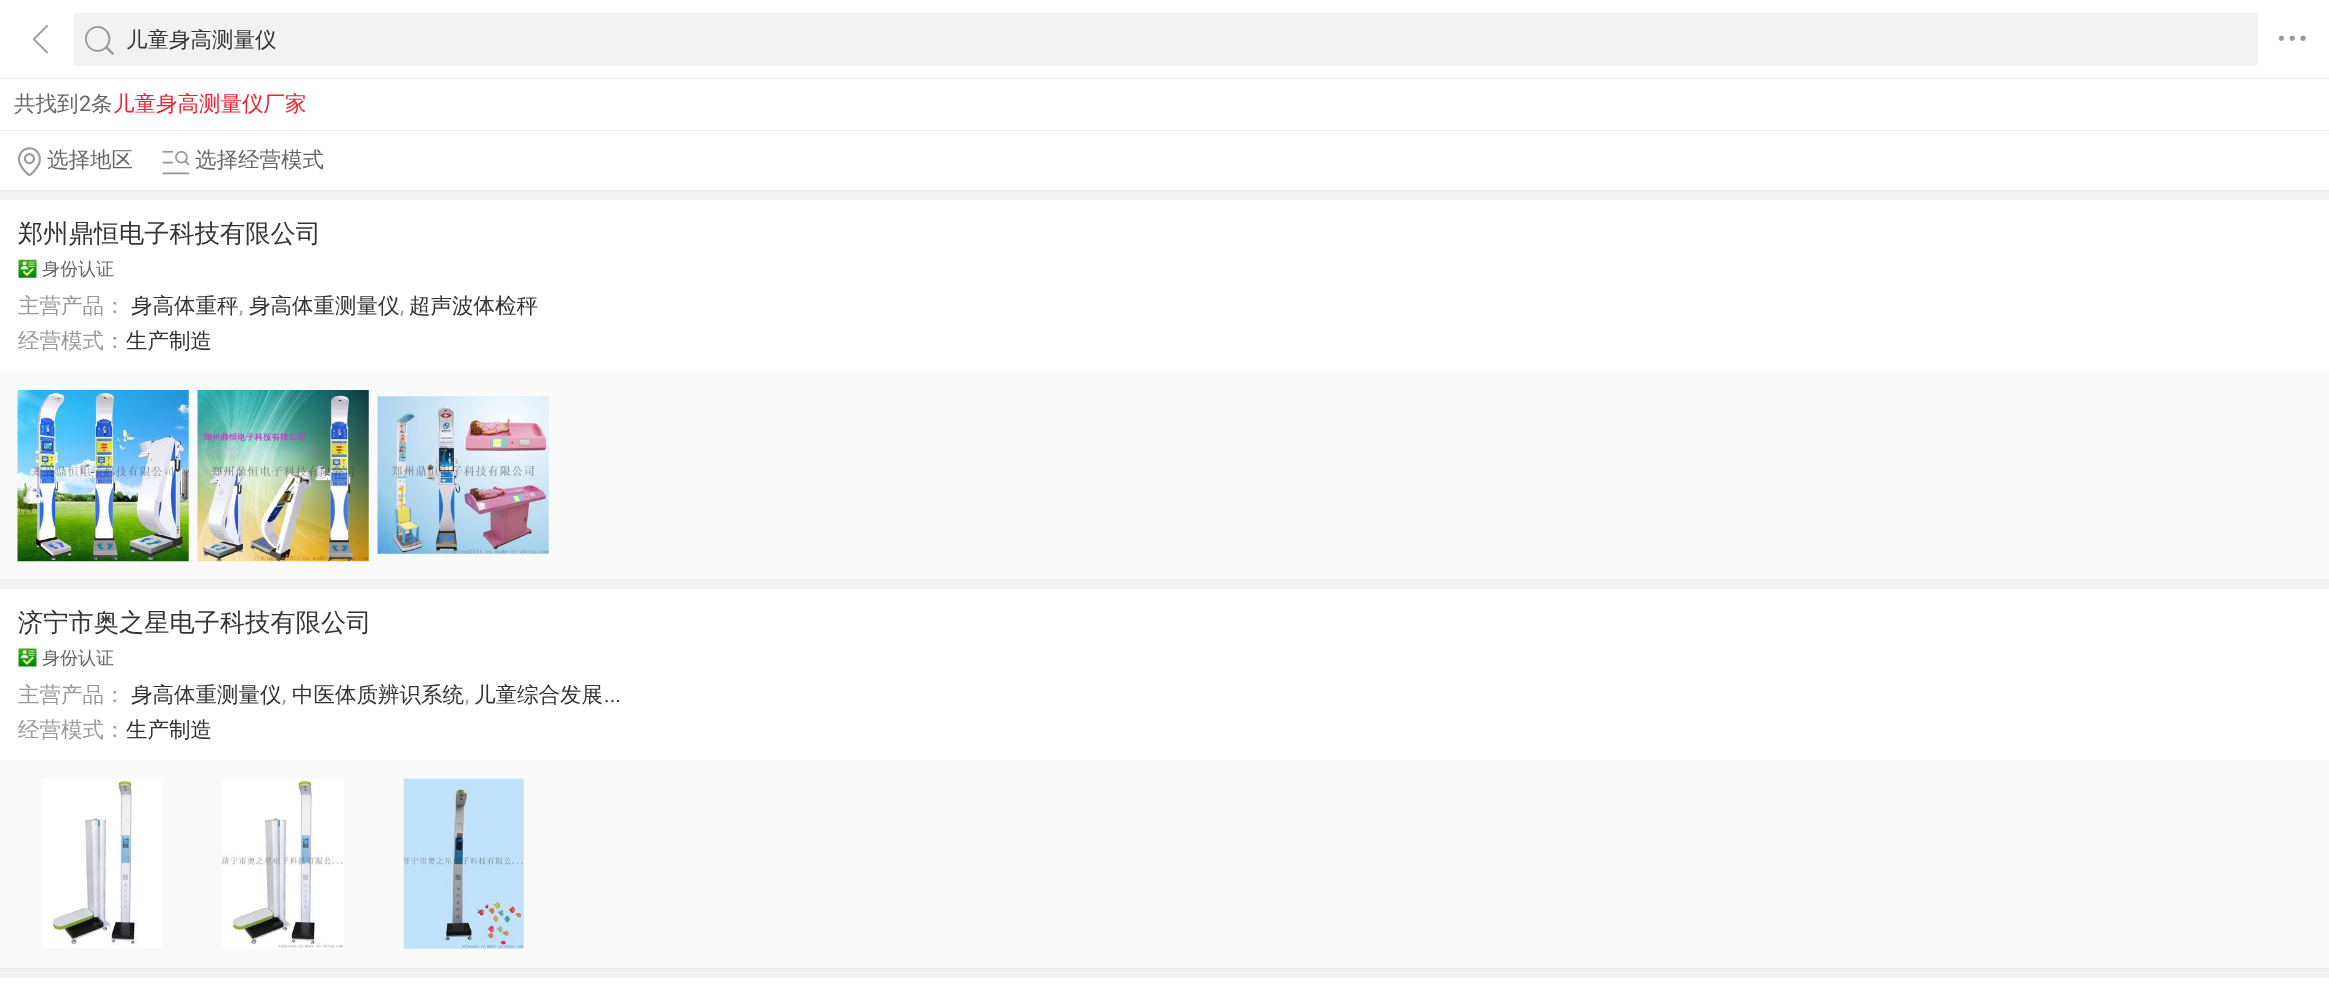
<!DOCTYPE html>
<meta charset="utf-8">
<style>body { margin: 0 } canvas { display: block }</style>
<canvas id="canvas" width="2329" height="1006"></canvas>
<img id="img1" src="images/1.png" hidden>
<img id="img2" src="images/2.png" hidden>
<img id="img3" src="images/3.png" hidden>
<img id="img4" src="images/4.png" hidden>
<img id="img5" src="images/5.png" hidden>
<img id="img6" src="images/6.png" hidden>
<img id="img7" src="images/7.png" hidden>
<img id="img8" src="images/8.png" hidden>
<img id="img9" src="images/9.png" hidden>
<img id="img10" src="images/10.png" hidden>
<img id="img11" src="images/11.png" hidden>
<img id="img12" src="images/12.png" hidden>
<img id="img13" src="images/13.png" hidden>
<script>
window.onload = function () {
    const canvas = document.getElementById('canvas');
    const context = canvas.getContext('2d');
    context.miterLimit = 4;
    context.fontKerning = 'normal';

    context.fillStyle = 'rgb(242, 242, 242)';
    context.fillRect(0, 0, 2329, 1006);
    context.fillStyle = 'rgb(255, 255, 255)';
    context.fillRect(0, 0, 2329, 78);
    context.fillStyle = 'rgb(238, 239, 243)';
    context.fillRect(0, 78, 2329, 1);
    context.drawImage(document.getElementById('img1'), 33, 24, 16, 30);
    context.fillStyle = 'rgb(242, 242, 242)';
    context.beginPath();
    context.roundRect(73, 13, 2185, 53, 4);
    context.fill();
    context.drawImage(document.getElementById('img2'), 85, 26, 29, 29);
    context.drawImage(document.getElementById('img3'), 2278, 35, 28, 6);
    context.fillStyle = 'rgb(255, 255, 255)';
    context.fillRect(0, 79, 2329, 51);
    context.fillRect(0, 131, 2329, 59);
    context.fillStyle = 'rgb(235, 235, 235)';
    context.fillRect(0, 130, 2329, 1);
    context.fillRect(0, 190, 2329, 1);
    context.drawImage(document.getElementById('img4'), 18, 147, 23, 29);
    context.drawImage(document.getElementById('img5'), 162, 150, 28, 25);
    context.fillStyle = 'rgb(255, 255, 255)';
    context.fillRect(0, 200, 2329, 171);
    context.fillStyle = 'rgb(235, 235, 235)';
    context.fillRect(0, 579, 2329, 1);
    context.drawImage(document.getElementById('img6'), 18, 259, 19, 19);
    context.fillStyle = 'rgb(250, 250, 250)';
    context.fillRect(0, 371, 2329, 208);
    context.drawImage(document.getElementById('img7'), 17, 390, 172, 172);
    context.drawImage(document.getElementById('img8'), 197, 390, 172, 172);
    context.drawImage(document.getElementById('img9'), 377, 396, 172, 158);
    context.fillStyle = 'rgb(255, 255, 255)';
    context.fillRect(0, 589, 2329, 171);
    context.fillStyle = 'rgb(235, 235, 235)';
    context.fillRect(0, 968, 2329, 1);
    context.drawImage(document.getElementById('img10'), 18, 648, 19, 19);
    context.fillStyle = 'rgb(250, 250, 250)';
    context.fillRect(0, 760, 2329, 208);
    context.drawImage(document.getElementById('img11'), 43, 779, 120, 169);
    context.drawImage(document.getElementById('img12'), 222, 778, 122, 171);
    context.drawImage(document.getElementById('img13'), 403, 778, 121, 171);
    context.fillStyle = 'rgb(255, 255, 255)';
    context.fillRect(0, 978, 2329, 28);
    context.font = '500 21.5px WenQuanYi Zen Hei';
    context.fillStyle = 'rgb(51, 51, 51)';
    context.fillText('儿童身高测量仪', 126, 47);
    context.fillStyle = 'rgb(102, 102, 102)';
    context.fillText('共找到', 14, 111);
    context.font = '21.5px Roboto';
    context.fillText('2', 79, 111);
    context.font = '500 21.5px WenQuanYi Zen Hei';
    context.fillText('条', 91, 111);
    context.fillStyle = 'rgb(235, 35, 52)';
    context.fillText('儿童身高测量仪厂家', 113, 111);
    context.fillStyle = 'rgb(102, 102, 102)';
    context.fillText('选择地区', 47, 167);
    context.fillText('选择经营模式', 195, 167);
    context.font = '500 25.25px WenQuanYi Zen Hei';
    context.fillStyle = 'rgb(51, 51, 51)';
    context.fillText('郑州鼎恒电子科技有限公司', 18, 242);
    context.font = '500 18px WenQuanYi Zen Hei';
    context.fillStyle = 'rgb(102, 102, 102)';
    context.fillText('身份认证', 42, 275);
    context.font = '500 21.5px WenQuanYi Zen Hei';
    context.fillStyle = 'rgb(153, 153, 153)';
    context.fillText('主营产品：', 18, 313);
    context.fillStyle = 'rgb(51, 51, 51)';
    context.fillText('身高体重秤', 131, 313);
    context.font = '21.5px Roboto';
    context.fillStyle = 'rgb(153, 153, 153)';
    context.fillText(',', 239, 313);
    context.font = '500 21.5px WenQuanYi Zen Hei';
    context.fillStyle = 'rgb(51, 51, 51)';
    context.fillText('身高体重测量仪', 249, 313);
    context.font = '21.5px Roboto';
    context.fillStyle = 'rgb(153, 153, 153)';
    context.fillText(',', 400, 313);
    context.font = '500 21.5px WenQuanYi Zen Hei';
    context.fillStyle = 'rgb(51, 51, 51)';
    context.fillText('超声波体检秤', 409, 313);
    context.fillStyle = 'rgb(153, 153, 153)';
    context.fillText('经营模式：', 18, 348);
    context.fillStyle = 'rgb(51, 51, 51)';
    context.fillText('生产制造', 126, 348);
    context.font = '500 25.25px WenQuanYi Zen Hei';
    context.fillText('济宁市奥之星电子科技有限公司', 18, 631);
    context.font = '500 18px WenQuanYi Zen Hei';
    context.fillStyle = 'rgb(102, 102, 102)';
    context.fillText('身份认证', 42, 664);
    context.font = '500 21.5px WenQuanYi Zen Hei';
    context.fillStyle = 'rgb(153, 153, 153)';
    context.fillText('主营产品：', 18, 702);
    context.fillStyle = 'rgb(51, 51, 51)';
    context.fillText('身高体重测量仪', 131, 702);
    context.font = '21.5px Roboto';
    context.fillStyle = 'rgb(153, 153, 153)';
    context.fillText(',', 282, 702);
    context.font = '500 21.5px WenQuanYi Zen Hei';
    context.fillStyle = 'rgb(51, 51, 51)';
    context.fillText('中医体质辨识系统', 292, 702);
    context.font = '21.5px Roboto';
    context.fillStyle = 'rgb(153, 153, 153)';
    context.fillText(',', 465, 702);
    context.font = '500 21.5px WenQuanYi Zen Hei';
    context.fillStyle = 'rgb(51, 51, 51)';
    context.fillText('儿童综合发展', 474, 702);
    context.font = '21.5px Roboto';
    context.fillText('...', 604, 702);
    context.font = '500 21.5px WenQuanYi Zen Hei';
    context.fillStyle = 'rgb(153, 153, 153)';
    context.fillText('经营模式：', 18, 737);
    context.fillStyle = 'rgb(51, 51, 51)';
    context.fillText('生产制造', 126, 737);
};
</script>
